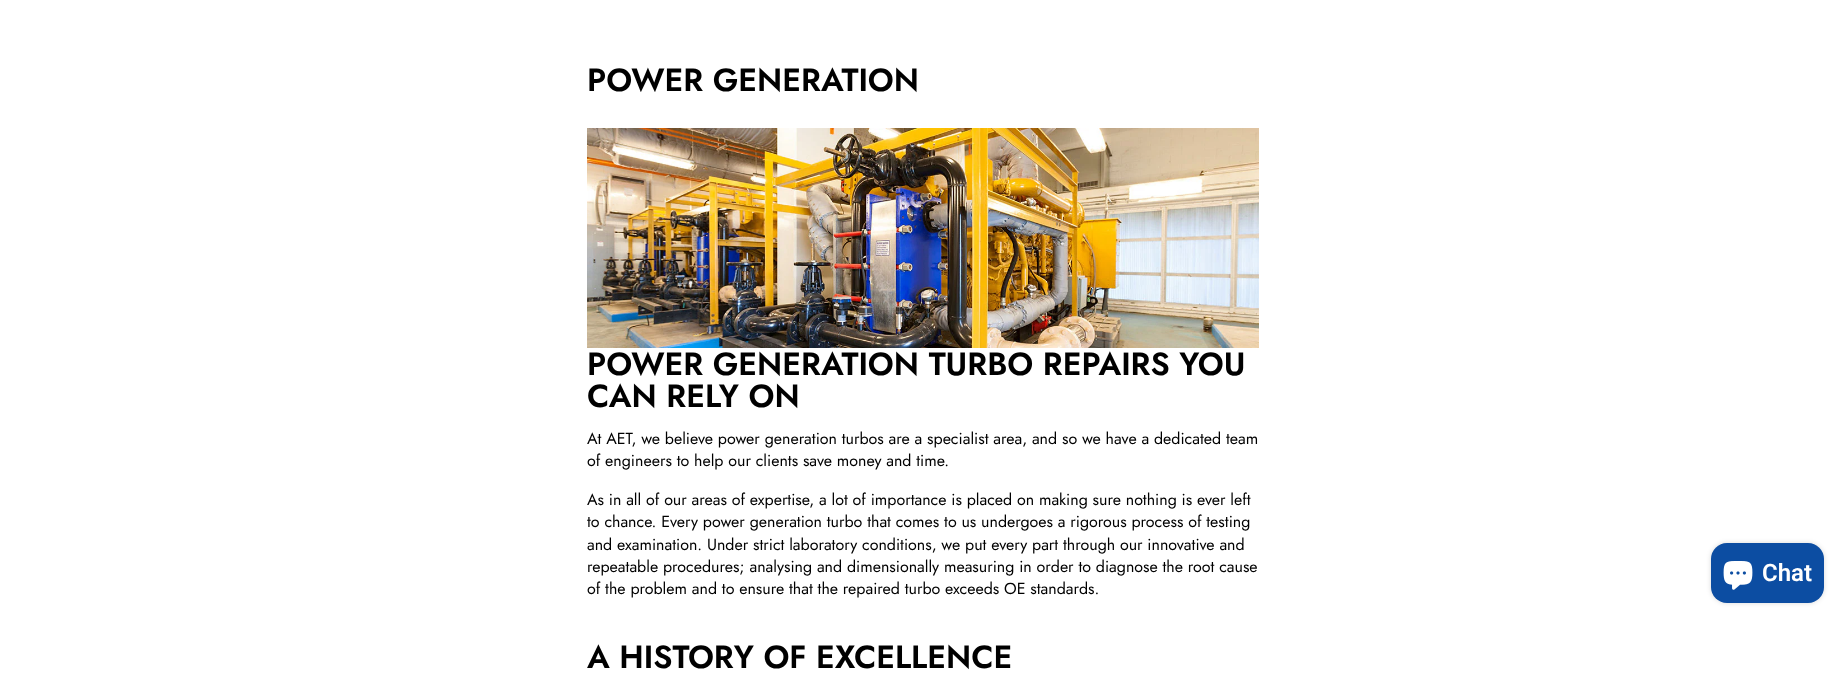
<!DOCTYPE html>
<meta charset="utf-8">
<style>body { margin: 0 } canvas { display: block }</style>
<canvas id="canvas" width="1846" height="688"></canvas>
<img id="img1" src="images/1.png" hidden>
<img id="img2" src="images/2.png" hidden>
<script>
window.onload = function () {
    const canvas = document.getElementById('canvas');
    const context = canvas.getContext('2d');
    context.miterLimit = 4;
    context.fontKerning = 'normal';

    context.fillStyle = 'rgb(255, 255, 255)';
    context.fillRect(0, 0, 1846, 688);
    context.drawImage(document.getElementById('img1'), 587, 128, 672, 220);
    context.fillStyle = 'rgba(0, 0, 0, 0.15)';
    context.filter = 'blur(2.5px)';
    context.beginPath();
    context.roundRect(1711, 543, 113, 60, 16);
    context.fill();
    context.filter = 'none';
    context.fillStyle = 'rgb(12, 77, 162)';
    context.beginPath();
    context.roundRect(1711, 543, 113, 60, 16);
    context.fill();
    context.drawImage(document.getElementById('img2'), 1723, 561, 30, 29);
    context.font = '600 32px Jost';
    context.fillStyle = 'rgb(0, 0, 0)';
    context.fillText('POWER GENERATION', 587, 91);
    context.fillText('POWER GENERATION TURBO REPAIRS YOU', 587, 375);
    context.fillText('CAN RELY ON', 587, 407);
    context.font = '16px Jost';
    context.fillText('At AET, we believe power generation turbos are a specialist area, and so we have a dedicated team', 587, 444);
    context.fillText('of engineers to help our clients save money and time.', 587, 466);
    context.fillText('As in all of our areas of expertise, a lot of importance is placed on making sure nothing is ever left', 587, 505);
    context.fillText('to chance. Every power generation turbo that comes to us undergoes a rigorous process of testing', 587, 527);
    context.fillText('and examination. Under strict laboratory conditions, we put every part through our innovative and', 587, 550);
    context.fillText('repeatable procedures; analysing and dimensionally measuring in order to diagnose the root cause', 587, 572);
    context.fillText('of the problem and to ensure that the repaired turbo exceeds OE standards.', 587, 594);
    context.font = '600 32px Jost';
    context.fillText('A HISTORY OF EXCELLENCE', 587, 668);
    context.font = '600 24px Roboto';
    context.fillStyle = 'rgb(255, 255, 255)';
    context.fillText('Chat', 1762, 581);
};
</script>
